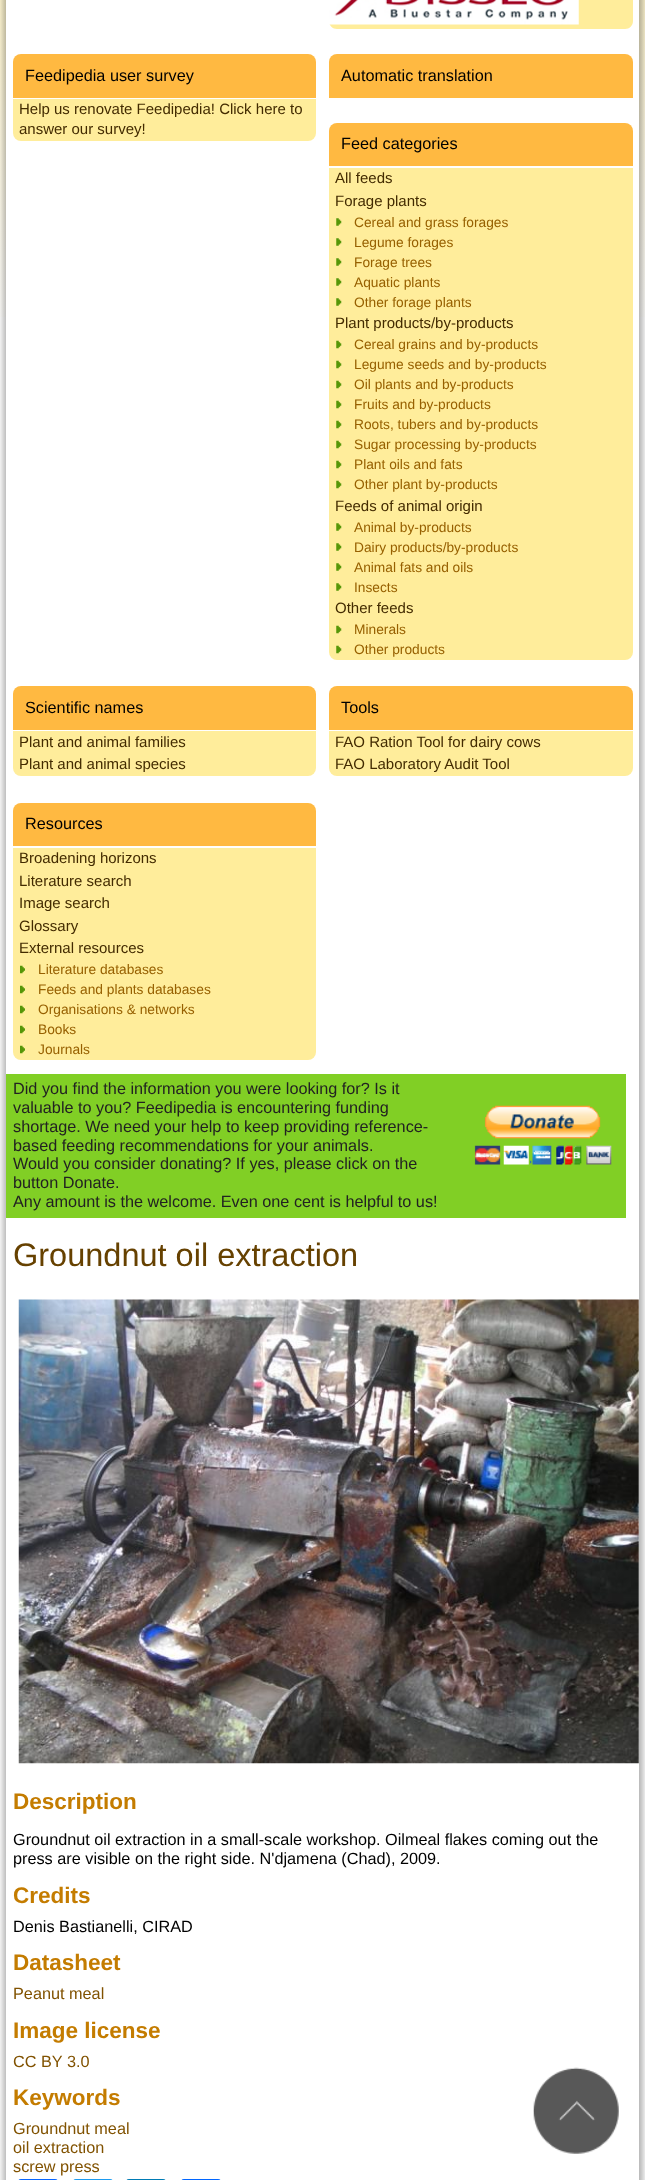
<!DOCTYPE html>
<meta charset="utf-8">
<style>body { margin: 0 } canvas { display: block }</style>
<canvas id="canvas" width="645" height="2180"></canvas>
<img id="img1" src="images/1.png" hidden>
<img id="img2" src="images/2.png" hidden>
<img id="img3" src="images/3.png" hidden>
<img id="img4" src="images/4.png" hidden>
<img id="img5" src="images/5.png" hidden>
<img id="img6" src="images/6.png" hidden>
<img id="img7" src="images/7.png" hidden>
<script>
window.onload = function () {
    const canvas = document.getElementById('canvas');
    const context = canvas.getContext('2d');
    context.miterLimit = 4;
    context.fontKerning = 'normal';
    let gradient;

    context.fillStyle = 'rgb(255, 255, 255)';
    context.fillRect(0, 0, 645, 2180);
    gradient = context.createLinearGradient(322, -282, 323, 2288);
    gradient.addColorStop(0, 'rgb(255, 239, 168)');
    gradient.addColorStop(0.24, 'rgb(255, 255, 255)');
    context.fillStyle = gradient;
    context.fillRect(0, 0, 645, 317);
    context.fillStyle = 'rgba(0, 0, 0, 0.3)';
    context.filter = 'blur(3px)';
    context.beginPath();
    context.roundRect(3, -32, 640, 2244, 23);
    context.fill();
    context.filter = 'none';
    context.fillStyle = 'rgb(255, 255, 255)';
    context.fillRect(6, 0, 633, 2180);
    context.fillStyle = 'rgb(255, 237, 155)';
    context.beginPath();
    context.moveTo(329, -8);
    context.lineTo(633, -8);
    context.lineTo(633, 21);
    context.bezierCurveTo(633, 25.5, 629.5, 29, 625, 29);
    context.lineTo(337, 29);
    context.bezierCurveTo(332.5, 29, 329, 25.5, 329, 21);
    context.closePath();
    context.fill();
    context.drawImage(document.getElementById('img1'), 329, 0, 250, 25);
    context.fillStyle = 'rgb(255, 185, 65)';
    context.beginPath();
    context.roundRect(13, 54, 303, 44, [8, 8, 0, 0]);
    context.fill();
    context.fillStyle = 'rgb(255, 237, 155)';
    context.beginPath();
    context.roundRect(13, 99, 303, 42, [0, 0, 8, 8]);
    context.fill();
    context.fillStyle = 'rgb(255, 185, 65)';
    context.beginPath();
    context.roundRect(329, 54, 304, 44, [8, 8, 0, 0]);
    context.fill();
    context.beginPath();
    context.roundRect(329, 123, 304, 43, [8, 8, 0, 0]);
    context.fill();
    context.fillStyle = 'rgb(255, 237, 155)';
    context.beginPath();
    context.roundRect(329, 168, 304, 492, [0, 0, 8, 8]);
    context.fill();
    context.drawImage(document.getElementById('img2'), 336, 218, 6, 8);
    context.drawImage(document.getElementById('img2'), 336, 238, 6, 8);
    context.drawImage(document.getElementById('img2'), 336, 258, 6, 8);
    context.drawImage(document.getElementById('img2'), 336, 278, 6, 8);
    context.drawImage(document.getElementById('img2'), 336, 298, 6, 8);
    context.drawImage(document.getElementById('img3'), 336, 340, 6, 9);
    context.drawImage(document.getElementById('img3'), 336, 360, 6, 9);
    context.drawImage(document.getElementById('img3'), 336, 380, 6, 9);
    context.drawImage(document.getElementById('img3'), 336, 400, 6, 9);
    context.drawImage(document.getElementById('img3'), 336, 420, 6, 9);
    context.drawImage(document.getElementById('img3'), 336, 440, 6, 9);
    context.drawImage(document.getElementById('img3'), 336, 460, 6, 9);
    context.drawImage(document.getElementById('img3'), 336, 480, 6, 9);
    context.drawImage(document.getElementById('img2'), 336, 523, 6, 8);
    context.drawImage(document.getElementById('img2'), 336, 543, 6, 8);
    context.drawImage(document.getElementById('img2'), 336, 563, 6, 8);
    context.drawImage(document.getElementById('img2'), 336, 583, 6, 8);
    context.drawImage(document.getElementById('img3'), 336, 625, 6, 9);
    context.drawImage(document.getElementById('img3'), 336, 645, 6, 9);
    context.fillStyle = 'rgb(255, 185, 65)';
    context.beginPath();
    context.roundRect(13, 686, 303, 44, [8, 8, 0, 0]);
    context.fill();
    context.fillStyle = 'rgb(255, 237, 155)';
    context.beginPath();
    context.roundRect(13, 731, 303, 45, [0, 0, 8, 8]);
    context.fill();
    context.fillStyle = 'rgb(255, 185, 65)';
    context.beginPath();
    context.roundRect(329, 686, 304, 44, [8, 8, 0, 0]);
    context.fill();
    context.fillStyle = 'rgb(255, 237, 155)';
    context.beginPath();
    context.roundRect(329, 731, 304, 45, [0, 0, 8, 8]);
    context.fill();
    context.fillStyle = 'rgb(255, 185, 65)';
    context.beginPath();
    context.roundRect(13, 803, 303, 43, [8, 8, 0, 0]);
    context.fill();
    context.fillStyle = 'rgb(255, 237, 155)';
    context.beginPath();
    context.roundRect(13, 848, 303, 212, [0, 0, 8, 8]);
    context.fill();
    context.drawImage(document.getElementById('img4'), 20, 965, 5, 9);
    context.drawImage(document.getElementById('img4'), 20, 985, 5, 9);
    context.drawImage(document.getElementById('img4'), 20, 1005, 5, 9);
    context.drawImage(document.getElementById('img4'), 20, 1025, 5, 9);
    context.drawImage(document.getElementById('img4'), 20, 1045, 5, 9);
    context.fillStyle = 'rgb(129, 207, 37)';
    context.fillRect(6, 1074, 620, 144);
    context.drawImage(document.getElementById('img5'), 474, 1105, 138, 60);
    context.drawImage(document.getElementById('img6'), 18, 1299, 621, 465);
    context.fillStyle = 'rgb(8, 102, 255)';
    context.beginPath();
    context.roundRect(18, 2179, 40, 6, 5);
    context.fill();
    context.fillStyle = 'rgb(29, 155, 240)';
    context.beginPath();
    context.roundRect(73, 2179, 40, 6, 5);
    context.fill();
    context.fillStyle = 'rgb(0, 123, 181)';
    context.beginPath();
    context.roundRect(126, 2179, 40, 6, 5);
    context.fill();
    context.fillStyle = 'rgb(1, 102, 255)';
    context.beginPath();
    context.roundRect(181, 2179, 40, 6, 5);
    context.fill();
    context.drawImage(document.getElementById('img7'), 533, 2067, 86, 87);
    context.font = '16.25px Liberation Sans';
    context.fillStyle = 'rgb(0, 0, 0)';
    context.fillText('Feedipedia user survey', 25, 81);
    context.font = '15px Liberation Sans';
    context.fillStyle = 'rgb(67, 43, 0)';
    context.fillText('Help us renovate Feedipedia! Click here to', 19, 114);
    context.fillText('answer our survey!', 19, 134);
    context.font = '16.25px Liberation Sans';
    context.fillStyle = 'rgb(0, 0, 0)';
    context.fillText('Automatic translation', 341, 81);
    context.fillText('Feed categories', 341, 149);
    context.font = '15px Liberation Sans';
    context.fillStyle = 'rgb(67, 43, 0)';
    context.fillText('All feeds', 335, 183);
    context.fillText('Forage plants', 335, 206);
    context.font = '13.75px Liberation Sans';
    context.fillStyle = 'rgb(151, 96, 0)';
    context.fillText('Cereal and grass forages', 354, 227);
    context.fillText('Legume forages', 354, 247);
    context.fillText('Forage trees', 354, 267);
    context.fillText('Aquatic plants', 354, 287);
    context.fillText('Other forage plants', 354, 307);
    context.font = '15px Liberation Sans';
    context.fillStyle = 'rgb(67, 43, 0)';
    context.fillText('Plant products/by-products', 335, 328);
    context.font = '13.75px Liberation Sans';
    context.fillStyle = 'rgb(151, 96, 0)';
    context.fillText('Cereal grains and by-products', 354, 349);
    context.fillText('Legume seeds and by-products', 354, 369);
    context.fillText('Oil plants and by-products', 354, 389);
    context.fillText('Fruits and by-products', 354, 409);
    context.fillText('Roots, tubers and by-products', 354, 429);
    context.fillText('Sugar processing by-products', 354, 449);
    context.fillText('Plant oils and fats', 354, 469);
    context.fillText('Other plant by-products', 354, 489);
    context.font = '15px Liberation Sans';
    context.fillStyle = 'rgb(67, 43, 0)';
    context.fillText('Feeds of animal origin', 335, 511);
    context.font = '13.75px Liberation Sans';
    context.fillStyle = 'rgb(151, 96, 0)';
    context.fillText('Animal by-products', 354, 532);
    context.fillText('Dairy products/by-products', 354, 552);
    context.fillText('Animal fats and oils', 354, 572);
    context.fillText('Insects', 354, 592);
    context.font = '15px Liberation Sans';
    context.fillStyle = 'rgb(67, 43, 0)';
    context.fillText('Other feeds', 335, 613);
    context.font = '13.75px Liberation Sans';
    context.fillStyle = 'rgb(151, 96, 0)';
    context.fillText('Minerals', 354, 634);
    context.fillText('Other products', 354, 654);
    context.font = '16.25px Liberation Sans';
    context.fillStyle = 'rgb(0, 0, 0)';
    context.fillText('Scientific names', 25, 713);
    context.font = '15px Liberation Sans';
    context.fillStyle = 'rgb(67, 43, 0)';
    context.fillText('Plant and animal families', 19, 747);
    context.fillText('Plant and animal species', 19, 769);
    context.font = '16.25px Liberation Sans';
    context.fillStyle = 'rgb(0, 0, 0)';
    context.fillText('Tools', 341, 713);
    context.font = '15px Liberation Sans';
    context.fillStyle = 'rgb(67, 43, 0)';
    context.fillText('FAO Ration Tool for dairy cows', 335, 747);
    context.fillText('FAO Laboratory Audit Tool', 335, 769);
    context.font = '16.25px Liberation Sans';
    context.fillStyle = 'rgb(0, 0, 0)';
    context.fillText('Resources', 25, 829);
    context.font = '15px Liberation Sans';
    context.fillStyle = 'rgb(67, 43, 0)';
    context.fillText('Broadening horizons', 19, 863);
    context.fillText('Literature search', 19, 886);
    context.fillText('Image search', 19, 908);
    context.fillText('Glossary', 19, 931);
    context.fillText('External resources', 19, 953);
    context.font = '13.75px Liberation Sans';
    context.fillStyle = 'rgb(151, 96, 0)';
    context.fillText('Literature databases', 38, 974);
    context.fillText('Feeds and plants databases', 38, 994);
    context.fillText('Organisations & networks', 38, 1014);
    context.fillText('Books', 38, 1034);
    context.fillText('Journals', 38, 1054);
    context.font = '16.25px Liberation Sans';
    context.fillStyle = 'rgb(34, 34, 34)';
    context.fillText('Did you find the information you were looking for? Is it', 13, 1094);
    context.fillText('valuable to you? Feedipedia is encountering funding', 13, 1113);
    context.fillText('shortage. We need your help to keep providing reference-', 13, 1132);
    context.fillText('based feeding recommendations for your animals.', 13, 1151);
    context.fillText('Would you consider donating? If yes, please click on the', 13, 1169);
    context.fillText('button Donate.', 13, 1188);
    context.fillText('Any amount is the welcome. Even one cent is helpful to us!', 13, 1207);
    context.font = '32.5px Liberation Sans';
    context.fillStyle = 'rgb(102, 65, 0)';
    context.fillText('Groundnut oil extraction', 13, 1266);
    context.font = 'bold 22.5px Liberation Sans';
    context.fillStyle = 'rgb(196, 124, 0)';
    context.fillText('Description', 13, 1809);
    context.font = '16.25px Liberation Sans';
    context.fillStyle = 'rgb(0, 0, 0)';
    context.fillText('Groundnut oil extraction in a small-scale workshop. Oilmeal flakes coming out the', 13, 1845);
    context.fillText('press are visible on the right side. N\'djamena (Chad), 2009.', 13, 1864);
    context.font = 'bold 22.5px Liberation Sans';
    context.fillStyle = 'rgb(196, 124, 0)';
    context.fillText('Credits', 13, 1903);
    context.font = '16.25px Liberation Sans';
    context.fillStyle = 'rgb(0, 0, 0)';
    context.fillText('Denis Bastianelli, CIRAD', 13, 1932);
    context.font = 'bold 22.5px Liberation Sans';
    context.fillStyle = 'rgb(196, 124, 0)';
    context.fillText('Datasheet', 13, 1970);
    context.font = '16.25px Liberation Sans';
    context.fillStyle = 'rgb(129, 82, 0)';
    context.fillText('Peanut meal', 13, 1999);
    context.font = 'bold 22.5px Liberation Sans';
    context.fillStyle = 'rgb(196, 124, 0)';
    context.fillText('Image license', 13, 2038);
    context.font = '16.25px Liberation Sans';
    context.fillStyle = 'rgb(129, 82, 0)';
    context.fillText('CC BY 3.0', 13, 2067);
    context.font = 'bold 22.5px Liberation Sans';
    context.fillStyle = 'rgb(196, 124, 0)';
    context.fillText('Keywords', 13, 2105);
    context.font = '16.25px Liberation Sans';
    context.fillStyle = 'rgb(129, 82, 0)';
    context.fillText('Groundnut meal', 13, 2134);
    context.fillText('oil extraction', 13, 2153);
    context.fillText('screw press', 13, 2172);
};
</script>
